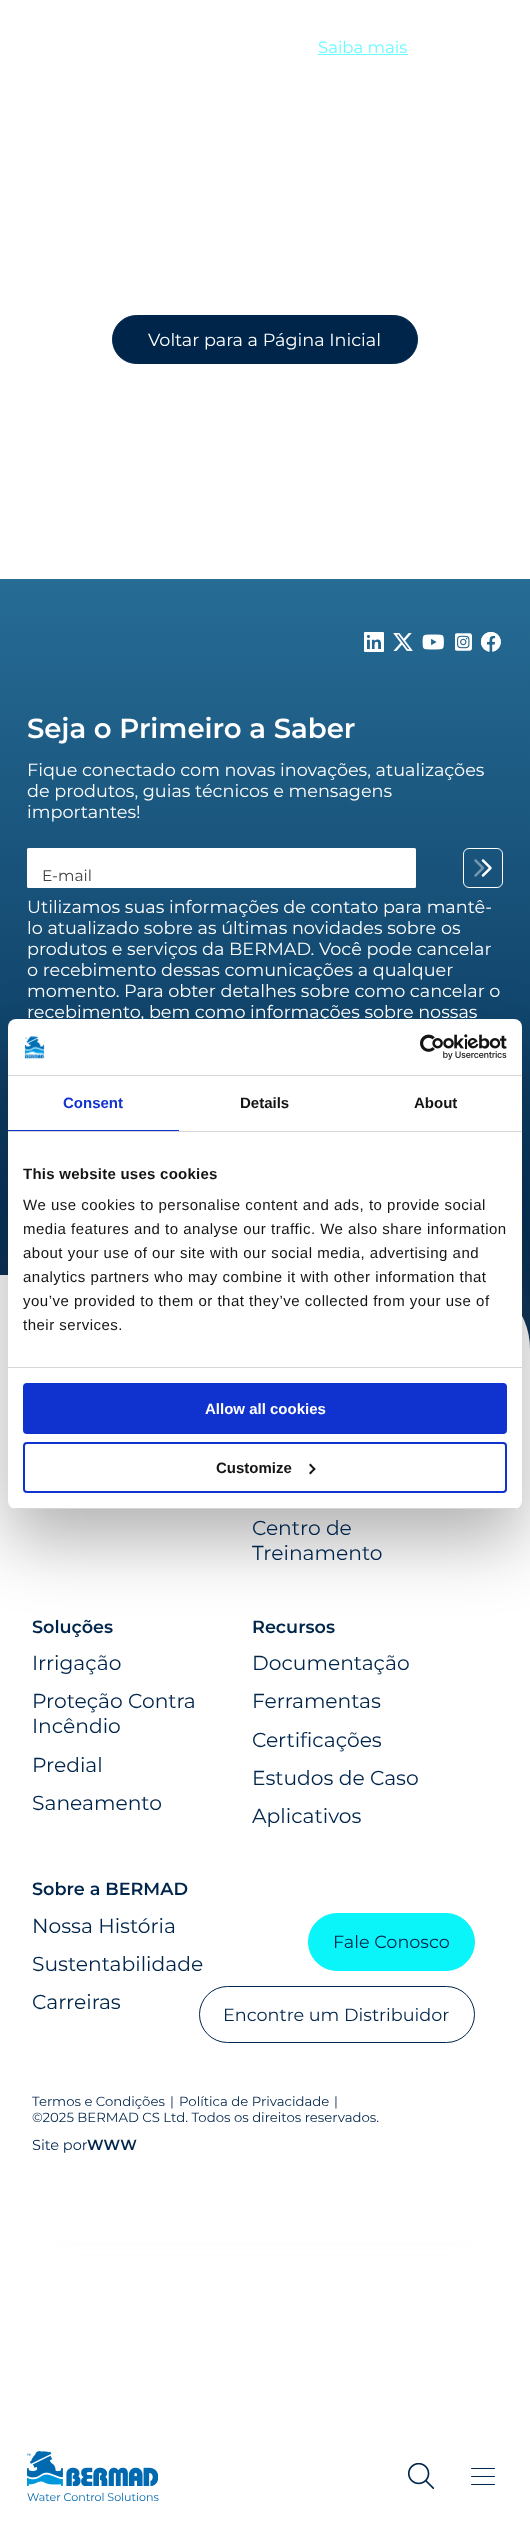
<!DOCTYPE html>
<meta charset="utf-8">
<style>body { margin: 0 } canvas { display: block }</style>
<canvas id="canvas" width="530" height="2528"></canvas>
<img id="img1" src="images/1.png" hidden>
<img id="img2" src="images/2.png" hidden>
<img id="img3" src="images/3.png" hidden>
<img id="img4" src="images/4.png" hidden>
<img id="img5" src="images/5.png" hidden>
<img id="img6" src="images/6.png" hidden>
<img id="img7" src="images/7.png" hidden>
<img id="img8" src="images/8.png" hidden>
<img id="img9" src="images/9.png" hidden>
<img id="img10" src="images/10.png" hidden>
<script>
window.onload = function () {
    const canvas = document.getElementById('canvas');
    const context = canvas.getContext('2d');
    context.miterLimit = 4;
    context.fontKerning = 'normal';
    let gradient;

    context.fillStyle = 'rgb(255, 255, 255)';
    context.fillRect(0, 0, 530, 2528);
    context.fillStyle = 'rgb(107, 252, 255)';
    context.fillRect(318, 54, 90, 1);
    context.fillStyle = 'rgb(0, 37, 75)';
    context.beginPath();
    context.roundRect(112.5, 315.5, 305, 48, 24);
    context.fill();
    context.strokeStyle = 'rgb(0, 37, 75)';
    context.stroke();
    gradient = context.createLinearGradient(265, 579, 265, 1392);
    gradient.addColorStop(0, 'rgb(38, 108, 149)');
    gradient.addColorStop(1, 'rgb(0, 37, 75)');
    context.fillStyle = gradient;
    context.fillRect(0, 579, 530, 770);
    context.drawImage(document.getElementById('img1'), 364, 632, 20, 20);
    context.drawImage(document.getElementById('img2'), 393, 633, 20, 18);
    context.drawImage(document.getElementById('img3'), 422, 634, 22, 16);
    context.drawImage(document.getElementById('img4'), 455, 633, 17, 18);
    context.drawImage(document.getElementById('img5'), 481, 632, 20, 20);
    context.fillStyle = 'rgb(255, 255, 255)';
    context.beginPath();
    context.roundRect(27, 848, 389, 40, 1.5);
    context.fill();
    context.drawImage(document.getElementById('img6'), 474, 859, 18, 18);
    context.beginPath();
    context.roundRect(463.5, 848.5, 39, 39, 5.5);
    context.strokeStyle = 'rgb(255, 255, 255)';
    context.stroke();
    context.fillStyle = 'rgba(176, 176, 176, 0.1)';
    context.filter = 'blur(14px)';
    context.beginPath();
    context.roundRect(0, 1262, 530, 967, 74);
    context.fill();
    context.filter = 'none';
    context.fillStyle = 'rgba(176, 176, 176, 0.09)';
    context.filter = 'blur(25.5px)';
    context.beginPath();
    context.roundRect(0, 1224, 530, 967, 74);
    context.fill();
    context.filter = 'none';
    context.fillStyle = 'rgb(255, 255, 255)';
    context.beginPath();
    context.roundRect(0, 1275, 530, 967, [0, 74, 0, 0]);
    context.fill();
    context.fillStyle = 'rgb(10, 245, 250)';
    context.beginPath();
    context.roundRect(308.5, 1913.5, 166, 57, 28.5);
    context.fill();
    context.strokeStyle = 'rgb(10, 245, 250)';
    context.stroke();
    context.beginPath();
    context.roundRect(199.5, 1986.5, 275, 56, 28);
    context.strokeStyle = 'rgb(0, 37, 75)';
    context.stroke();
    context.fillStyle = 'rgba(0, 0, 0, 0.3)';
    context.filter = 'blur(34px)';
    context.beginPath();
    context.roundRect(8, 1051, 514, 490, 8);
    context.fill();
    context.filter = 'none';
    context.fillStyle = 'rgb(255, 255, 255)';
    context.beginPath();
    context.roundRect(8, 1019, 514, 490, 8);
    context.fill();
    context.fillStyle = 'rgb(214, 214, 214)';
    context.fillRect(8, 1075, 514, 1);
    context.drawImage(document.getElementById('img7'), 24, 1036, 21, 23);
    context.drawImage(document.getElementById('img8'), 420, 1034, 87, 26);
    context.fillRect(8, 1131, 514, 1);
    context.fillStyle = 'rgb(16, 50, 207)';
    context.fillRect(8, 1130, 171, 1);
    context.fillStyle = 'rgb(214, 214, 214)';
    context.fillRect(8, 1367, 514, 1);
    context.save();
    context.beginPath();
    context.roundRect(8, 1019, 514, 490, 8);
    context.clip();
    context.fillRect(8, 1508, 514, 1);
    context.restore();
    context.fillStyle = 'rgb(16, 50, 207)';
    context.beginPath();
    context.roundRect(24, 1384, 482, 49, 3);
    context.fill();
    context.strokeStyle = 'rgb(16, 50, 207)';
    context.lineWidth = 2;
    context.stroke();
    context.beginPath();
    context.roundRect(24, 1443, 482, 49, 3);
    context.stroke();
    context.fillStyle = 'rgb(20, 20, 20)';
    context.beginPath();
    context.moveTo(310.5, 1463.5);
    context.lineTo(315.5, 1469);
    context.lineTo(314.5, 1470.5);
    context.lineTo(309, 1465);
    context.closePath();
    context.fill();
    context.beginPath();
    context.moveTo(314.5, 1467.5);
    context.lineTo(315.5, 1469);
    context.lineTo(310.5, 1474.5);
    context.lineTo(309, 1473);
    context.closePath();
    context.fill();
    context.drawImage(document.getElementById('img9'), 408, 2463, 26, 26);
    context.fillStyle = 'rgb(0, 37, 75)';
    context.beginPath();
    context.roundRect(471, 2468, 24, 1, 0.5);
    context.fill();
    context.beginPath();
    context.roundRect(471, 2476, 24, 1, 0.5);
    context.fill();
    context.beginPath();
    context.roundRect(471, 2484, 24, 1, 0.5);
    context.fill();
    context.drawImage(document.getElementById('img10'), 27, 2451, 131, 35);
    context.font = '16.5px Montserrat';
    context.fillStyle = 'rgb(107, 252, 255)';
    context.fillText('Saiba mais', 318, 53);
    context.font = '17.65px Montserrat';
    context.fillStyle = 'rgb(255, 255, 255)';
    context.fillText('Voltar para a Página Inicial', 148, 346);
    context.font = '600 27.6px Montserrat';
    context.fillText('Seja o Primeiro a Saber', 27, 738);
    context.font = '17.65px Montserrat';
    context.fillText('Fique conectado com novas inovações, atualizações', 27, 776);
    context.fillText('de produtos, guias técnicos e mensagens', 27, 797);
    context.fillText('importantes!', 27, 818);
    context.font = '15.5px Montserrat';
    context.fillStyle = 'rgb(66, 66, 66)';
    context.fillText('E-mail', 42, 881);
    context.font = '17.65px Montserrat';
    context.fillStyle = 'rgb(255, 255, 255)';
    context.fillText('Utilizamos suas informações de contato para mantê-', 27, 913);
    context.fillText('lo atualizado sobre as últimas novidades sobre os', 27, 934);
    context.fillText('produtos e serviços da BERMAD. Você pode cancelar', 27, 955);
    context.fillText('o recebimento dessas comunicações a qualquer', 27, 976);
    context.fillText('momento. Para obter detalhes sobre como cancelar o', 27, 997);
    context.fillText('recebimento, bem como informações sobre nossas', 27, 1018);
    context.font = '20.25px Montserrat';
    context.fillStyle = 'rgb(0, 37, 75)';
    context.fillText('Centro de', 252, 1535);
    context.fillText('Treinamento', 252, 1560);
    context.font = '600 17.65px Montserrat';
    context.fillText('Soluções', 32, 1633);
    context.font = '20.25px Montserrat';
    context.fillText('Irrigação', 32, 1670);
    context.fillText('Proteção Contra', 32, 1708);
    context.fillText('Incêndio', 32, 1733);
    context.fillText('Predial', 32, 1772);
    context.fillText('Saneamento', 32, 1810);
    context.font = '600 17.65px Montserrat';
    context.fillText('Recursos', 252, 1633);
    context.font = '20.25px Montserrat';
    context.fillText('Documentação', 252, 1670);
    context.fillText('Ferramentas', 252, 1708);
    context.fillText('Certificações', 252, 1747);
    context.fillText('Estudos de Caso', 252, 1785);
    context.fillText('Aplicativos', 252, 1823);
    context.font = '600 17.65px Montserrat';
    context.fillText('Sobre a BERMAD', 32, 1895);
    context.font = '20.25px Montserrat';
    context.fillText('Nossa História', 32, 1933);
    context.fillText('Sustentabilidade', 32, 1971);
    context.fillText('Carreiras', 32, 2009);
    context.font = '17.65px Montserrat';
    context.fillText('Fale Conosco', 333, 1948);
    context.fillText('Encontre um Distribuidor', 223, 2021);
    context.font = '13.25px Montserrat';
    context.fillText('Termos e Condições', 32, 2106);
    context.fillText('|', 170, 2106);
    context.fillText('Política de Privacidade', 179, 2106);
    context.fillText('|', 334, 2106);
    context.fillText('©2025 BERMAD CS Ltd. Todos os direitos reservados.', 32, 2122);
    context.font = '14.5px Montserrat';
    context.fillText('Site por', 32, 2150);
    context.font = '600 14.5px Montserrat';
    context.fillText('WWW', 87, 2150);
    context.font = 'bold 15px Liberation Sans';
    context.fillStyle = 'rgb(16, 50, 207)';
    context.fillText('Consent', 63, 1108);
    context.fillStyle = 'rgb(20, 20, 20)';
    context.fillText('Details', 240, 1108);
    context.fillText('About', 414, 1108);
    context.letterSpacing = '0.25px';
    context.fillText('This website uses cookies', 23, 1179);
    context.letterSpacing = '0.5px';
    context.font = '15px Liberation Sans';
    context.fillText('We use cookies to personalise content and ads, to provide social', 23, 1210);
    context.fillText('media features and to analyse our traffic. We also share information', 23, 1234);
    context.fillText('about your use of our site with our social media, advertising and', 23, 1258);
    context.fillText('analytics partners who may combine it with other information that', 23, 1282);
    context.fillText('you’ve provided to them or that they’ve collected from your use of', 23, 1306);
    context.fillText('their services.', 23, 1330);
    context.letterSpacing = '0px';
    context.font = 'bold 15px Liberation Sans';
    context.fillStyle = 'rgb(255, 255, 255)';
    context.fillText('Allow all cookies', 205, 1414);
    context.fillStyle = 'rgb(20, 20, 20)';
    context.fillText('Customize', 216, 1473);
    context.font = '11.1px Montserrat';
    context.fillStyle = 'rgb(0, 105, 176)';
    context.fillText('Water Control Solutions', 27, 2501);
};
</script>
